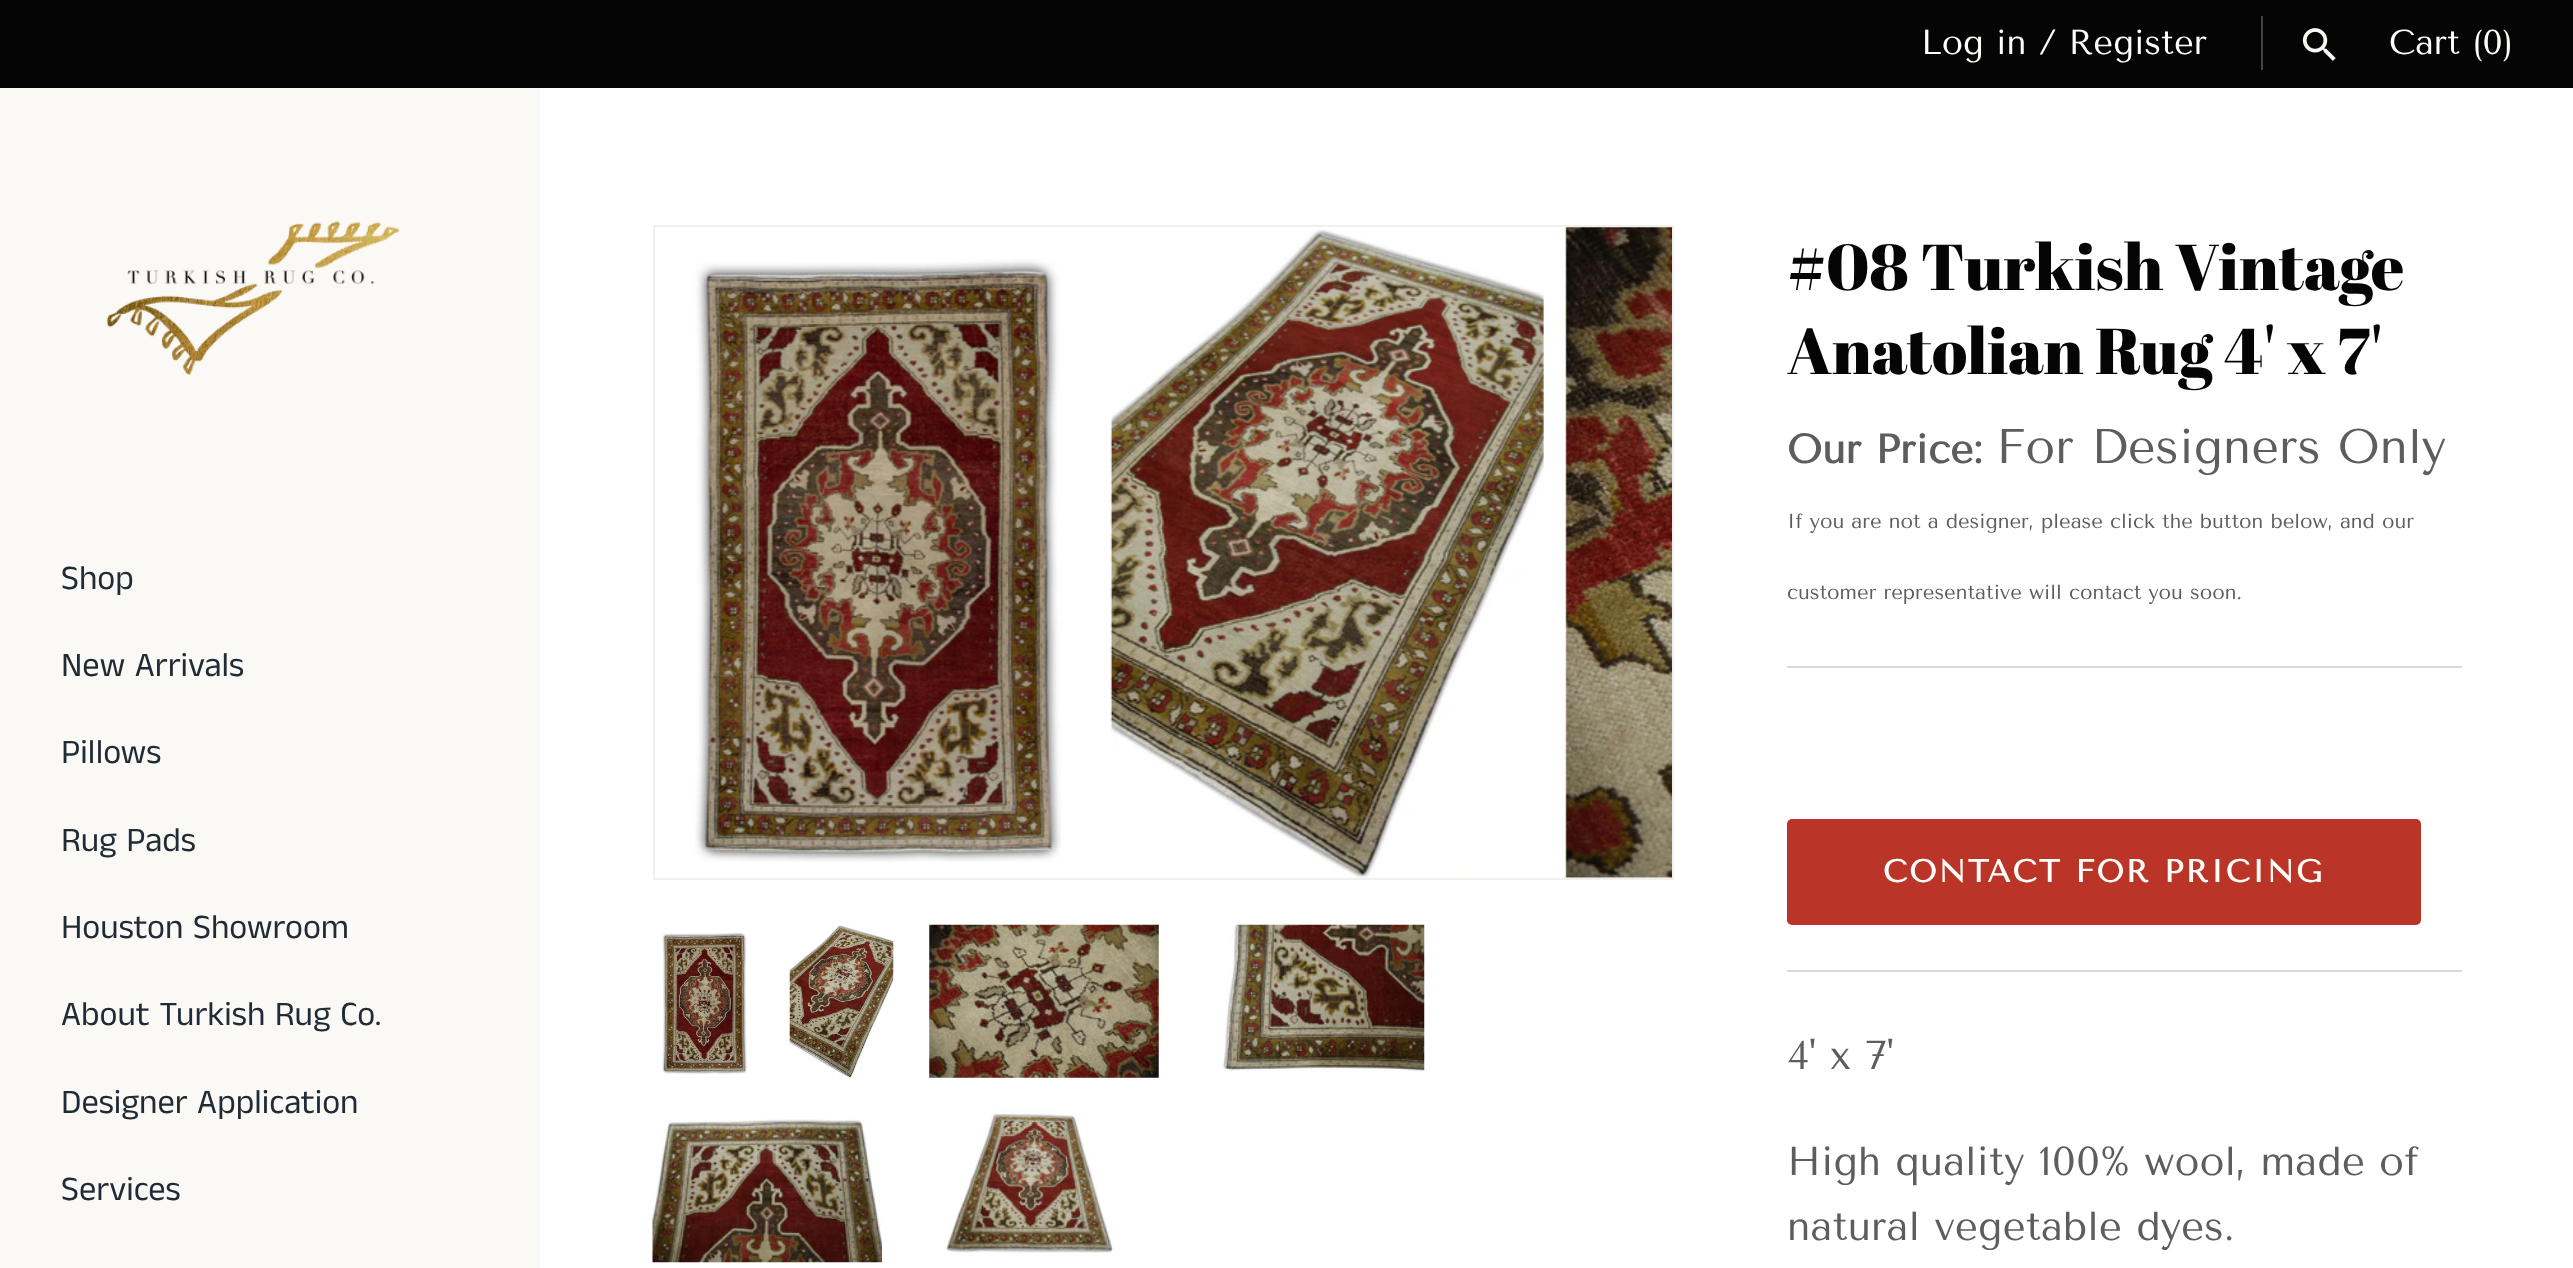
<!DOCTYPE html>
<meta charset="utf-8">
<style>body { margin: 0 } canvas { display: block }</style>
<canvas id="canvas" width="2573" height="1268"></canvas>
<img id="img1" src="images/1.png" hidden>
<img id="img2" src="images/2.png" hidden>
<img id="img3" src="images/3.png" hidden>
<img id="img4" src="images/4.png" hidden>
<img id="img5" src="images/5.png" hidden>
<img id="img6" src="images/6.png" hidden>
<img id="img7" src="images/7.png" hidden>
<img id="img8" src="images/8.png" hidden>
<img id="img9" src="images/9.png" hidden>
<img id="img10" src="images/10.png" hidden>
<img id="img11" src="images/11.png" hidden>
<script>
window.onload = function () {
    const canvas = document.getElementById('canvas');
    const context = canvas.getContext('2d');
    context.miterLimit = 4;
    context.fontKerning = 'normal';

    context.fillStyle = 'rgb(255, 255, 255)';
    context.fillRect(0, 0, 2573, 1268);
    context.fillStyle = 'rgb(5, 5, 5)';
    context.fillRect(0, 0, 2573, 88);
    context.fillStyle = 'rgb(66, 66, 65)';
    context.fillRect(2261, 16, 2, 54);
    context.drawImage(document.getElementById('img1'), 2302, 28, 34, 33);
    context.fillStyle = 'rgb(250, 249, 245)';
    context.fillRect(0, 88, 540, 1180);
    context.drawImage(document.getElementById('img2'), 106, 221, 294, 154);
    context.strokeStyle = 'rgb(241, 240, 239)';
    context.lineWidth = 2;
    context.strokeRect(654, 226, 1019, 653);
    context.drawImage(document.getElementById('img3'), 695, 259, 366, 603);
    context.drawImage(document.getElementById('img4'), 1110, 229, 434, 649);
    context.drawImage(document.getElementById('img5'), 1565, 227, 107, 651);
    context.drawImage(document.getElementById('img6'), 662, 932, 85, 142);
    context.drawImage(document.getElementById('img7'), 789, 925, 105, 153);
    context.drawImage(document.getElementById('img8'), 929, 924, 230, 154);
    context.drawImage(document.getElementById('img9'), 1222, 924, 203, 148);
    context.drawImage(document.getElementById('img10'), 652, 1119, 230, 144);
    context.drawImage(document.getElementById('img11'), 944, 1109, 170, 144);
    context.fillStyle = 'rgb(219, 218, 215)';
    context.fillRect(1787, 666, 675, 2);
    context.fillStyle = 'rgb(187, 52, 40)';
    context.beginPath();
    context.roundRect(1788, 820, 632, 104, 4);
    context.fill();
    context.strokeStyle = 'rgb(187, 52, 40)';
    context.stroke();
    context.fillStyle = 'rgb(219, 218, 215)';
    context.fillRect(1787, 970, 675, 2);
    context.font = '34.5px Tenor Sans';
    context.fillStyle = 'rgb(253, 253, 249)';
    context.fillText('Log in / Register', 1921, 54);
    context.fillText('Cart (0)', 2389, 54);
    context.font = '34.5px Anek Tamil';
    context.fillStyle = 'rgb(33, 43, 54)';
    context.fillText('Shop', 61, 589);
    context.fillText('New Arrivals', 61, 676);
    context.fillText('Pillows', 61, 763);
    context.fillText('Rug Pads', 61, 851);
    context.fillText('Houston Showroom', 61, 938);
    context.fillText('About Turkish Rug Co.', 61, 1025);
    context.fillText('Designer Application', 61, 1113);
    context.fillText('Services', 61, 1200);
    context.font = '64.75px Abril Fatface';
    context.fillStyle = 'rgb(5, 5, 5)';
    context.fillText('#08 Turkish Vintage', 1787, 290);
    context.fillText('Anatolian Rug 4\' x 7\'', 1787, 374);
    context.font = 'bold 40.5px Tenor Sans';
    context.fillStyle = 'rgb(93, 93, 96)';
    context.fillText('Our Price:', 1787, 463);
    context.font = '48.5px Tenor Sans';
    context.fillText('For Designers Only', 1996, 463);
    context.font = '20.25px Tenor Sans';
    context.fillText('If you are not a designer, please click the button below, and our', 1787, 528);
    context.fillText('customer representative will contact you soon.', 1787, 599);
    context.letterSpacing = '2.25px';
    context.font = 'bold 31.5px Tenor Sans';
    context.fillStyle = 'rgb(253, 253, 249)';
    context.fillText('CONTACT FOR PRICING', 1883, 882);
    context.letterSpacing = '0px';
    context.font = '40.5px Tenor Sans';
    context.fillStyle = 'rgb(93, 93, 96)';
    context.fillText('4\' x 7\'', 1787, 1069);
    context.fillText('High quality 100% wool, made of', 1787, 1175);
    context.fillText('natural vegetable dyes.', 1787, 1240);
};
</script>
